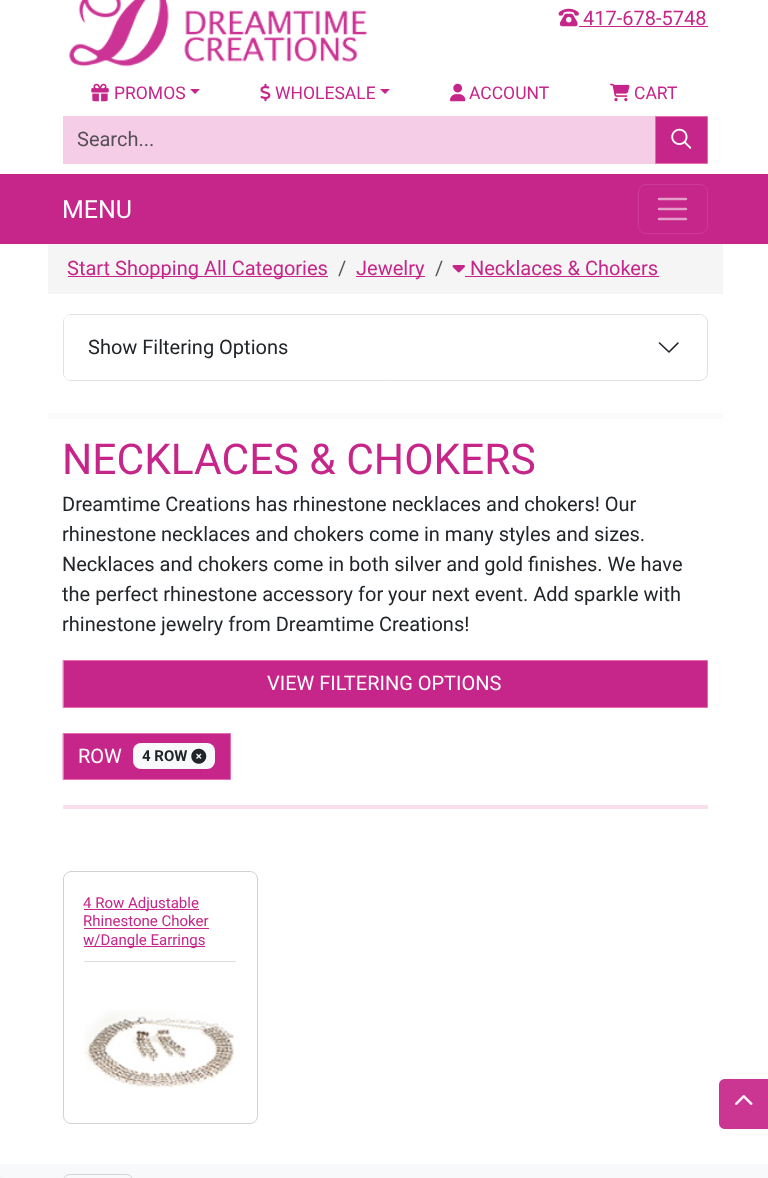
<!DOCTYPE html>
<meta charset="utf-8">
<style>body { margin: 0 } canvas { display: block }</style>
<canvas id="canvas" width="768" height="1178"></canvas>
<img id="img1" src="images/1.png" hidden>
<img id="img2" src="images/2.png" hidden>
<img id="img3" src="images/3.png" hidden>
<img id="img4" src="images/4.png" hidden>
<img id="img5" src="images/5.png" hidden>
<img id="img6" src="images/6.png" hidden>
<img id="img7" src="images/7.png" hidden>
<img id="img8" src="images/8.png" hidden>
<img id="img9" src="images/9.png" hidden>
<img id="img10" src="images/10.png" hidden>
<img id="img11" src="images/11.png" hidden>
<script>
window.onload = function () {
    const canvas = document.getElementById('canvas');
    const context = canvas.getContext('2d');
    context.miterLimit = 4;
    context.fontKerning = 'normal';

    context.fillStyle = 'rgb(255, 255, 255)';
    context.fillRect(0, 0, 768, 1178);
    context.drawImage(document.getElementById('img1'), 69, 0, 298, 67);
    context.drawImage(document.getElementById('img2'), 558, 8, 21, 19);
    context.fillStyle = 'rgb(198, 37, 137)';
    context.fillRect(579, 26, 129, 1);
    context.drawImage(document.getElementById('img3'), 91, 83, 18, 19);
    context.beginPath();
    context.moveTo(190, 89);
    context.lineTo(200, 89);
    context.lineTo(195, 94);
    context.closePath();
    context.fill();
    context.drawImage(document.getElementById('img4'), 260, 83, 11, 19);
    context.beginPath();
    context.moveTo(380, 89);
    context.lineTo(390, 89);
    context.lineTo(385, 94);
    context.closePath();
    context.fill();
    context.drawImage(document.getElementById('img5'), 450, 83, 16, 19);
    context.drawImage(document.getElementById('img6'), 610, 83, 20, 19);
    context.fillStyle = 'rgb(246, 205, 230)';
    context.fillRect(63, 116, 592, 48);
    context.fillStyle = 'rgb(198, 37, 137)';
    context.beginPath();
    context.rect(655.5, 116.5, 52, 47);
    context.fill();
    context.strokeStyle = 'rgb(227, 106, 181)';
    context.stroke();
    context.drawImage(document.getElementById('img7'), 671, 128, 21, 21);
    context.fillRect(0, 174, 768, 70);
    context.beginPath();
    context.roundRect(638.5, 184.5, 69, 49, 7.5);
    context.strokeStyle = 'rgb(204, 59, 149)';
    context.stroke();
    context.beginPath();
    context.moveTo(659, 199);
    context.lineTo(686, 199);
    context.moveTo(659, 209);
    context.lineTo(686, 209);
    context.moveTo(659, 219);
    context.lineTo(686, 219);
    context.strokeStyle = 'rgb(229, 157, 202)';
    context.lineWidth = 2.5;
    context.lineCap = 'round';
    context.stroke();
    context.fillStyle = 'rgb(245, 245, 245)';
    context.fillRect(48, 244, 675, 50);
    context.fillStyle = 'rgb(198, 37, 137)';
    context.fillRect(68, 276, 260, 1);
    context.fillRect(356, 276, 69, 1);
    context.drawImage(document.getElementById('img8'), 452, 265, 13, 8);
    context.fillRect(465, 276, 194, 1);
    context.fillStyle = 'rgb(250, 250, 250)';
    context.fillRect(48, 413, 675, 6);
    context.beginPath();
    context.roundRect(63.5, 314.5, 644, 66, 7.5);
    context.strokeStyle = 'rgb(222, 226, 230)';
    context.lineWidth = 1;
    context.stroke();
    context.fillStyle = 'rgb(255, 255, 255)';
    context.beginPath();
    context.roundRect(64, 315, 642, 65, 6);
    context.fill();
    context.beginPath();
    context.moveTo(659.5, 343);
    context.lineTo(669, 352);
    context.lineTo(678, 343);
    context.strokeStyle = 'rgb(33, 37, 41)';
    context.lineWidth = 1.6;
    context.lineJoin = 'round';
    context.stroke();
    context.fillStyle = 'rgb(198, 37, 137)';
    context.beginPath();
    context.rect(63.5, 660.5, 644, 47);
    context.fill();
    context.strokeStyle = 'rgb(227, 106, 181)';
    context.lineWidth = 1;
    context.lineJoin = 'miter';
    context.stroke();
    context.beginPath();
    context.rect(63.5, 733.5, 167, 46);
    context.fill();
    context.stroke();
    context.fillStyle = 'rgb(248, 249, 250)';
    context.beginPath();
    context.roundRect(133, 743, 82, 26, 8);
    context.fill();
    context.drawImage(document.getElementById('img9'), 191, 748, 16, 16);
    context.fillStyle = 'rgb(249, 222, 238)';
    context.fillRect(63, 805, 645, 4);
    context.beginPath();
    context.roundRect(63.5, 871.5, 194, 252, 7.5);
    context.strokeStyle = 'rgb(210, 210, 210)';
    context.stroke();
    context.fillStyle = 'rgb(221, 221, 221)';
    context.fillRect(84, 961, 152, 1);
    context.fillStyle = 'rgb(198, 37, 137)';
    context.fillRect(84, 909, 115, 1);
    context.fillRect(84, 928, 125, 1);
    context.fillRect(84, 946, 121, 1);
    context.drawImage(document.getElementById('img10'), 84, 1010, 150, 78);
    context.fillStyle = 'rgb(248, 249, 250)';
    context.fillRect(0, 1164, 768, 14);
    context.beginPath();
    context.roundRect(63.5, 1174.5, 69, 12, 7.5);
    context.strokeStyle = 'rgb(211, 212, 213)';
    context.stroke();
    context.fillStyle = 'rgb(202, 54, 146)';
    context.beginPath();
    context.moveTo(725, 1079);
    context.lineTo(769, 1079);
    context.lineTo(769, 1129);
    context.lineTo(725, 1129);
    context.bezierCurveTo(721.5, 1129, 719, 1126.5, 719, 1123);
    context.lineTo(719, 1085);
    context.bezierCurveTo(719, 1081.5, 721.5, 1079, 725, 1079);
    context.closePath();
    context.fill();
    context.drawImage(document.getElementById('img11'), 735, 1095, 18, 10);
    context.fillStyle = 'rgb(245, 245, 245)';
    context.fillRect(0, 1176, 3, 2);
    context.font = '20px Roboto';
    context.fillStyle = 'rgb(198, 37, 137)';
    context.fillText('417-678-5748', 583, 25);
    context.font = '17.5px Roboto';
    context.fillText('PROMOS', 114, 99);
    context.fillText('WHOLESALE', 275, 99);
    context.fillText('ACCOUNT', 469, 99);
    context.fillText('CART', 634, 99);
    context.font = '20px Roboto';
    context.fillStyle = 'rgb(86, 79, 88)';
    context.fillText('Search...', 77, 146);
    context.font = '25px Roboto';
    context.fillStyle = 'rgb(255, 255, 255)';
    context.fillText('MENU', 62, 218);
    context.font = '20px Roboto';
    context.fillStyle = 'rgb(198, 37, 137)';
    context.fillText('Start Shopping All Categories', 67, 275);
    context.fillStyle = 'rgb(86, 89, 92)';
    context.fillText('/', 338, 275);
    context.fillStyle = 'rgb(198, 37, 137)';
    context.fillText('Jewelry', 356, 275);
    context.fillStyle = 'rgb(86, 89, 92)';
    context.fillText('/', 435, 275);
    context.fillStyle = 'rgb(198, 37, 137)';
    context.fillText('Necklaces & Chokers', 470, 275);
    context.fillStyle = 'rgb(33, 37, 41)';
    context.fillText('Show Filtering Options', 88, 354);
    context.font = '42.5px Roboto';
    context.fillStyle = 'rgb(198, 37, 137)';
    context.fillText('NECKLACES & CHOKERS', 62, 474);
    context.font = '20px Roboto';
    context.fillStyle = 'rgb(33, 37, 41)';
    context.fillText('Dreamtime Creations has rhinestone necklaces and chokers! Our', 62, 511);
    context.fillText('rhinestone necklaces and chokers come in many styles and sizes.', 62, 541);
    context.fillText('Necklaces and chokers come in both silver and gold finishes. We have', 62, 571);
    context.fillText('the perfect rhinestone accessory for your next event. Add sparkle with', 62, 601);
    context.fillText('rhinestone jewelry from Dreamtime Creations!', 62, 631);
    context.fillStyle = 'rgb(255, 255, 255)';
    context.fillText('VIEW FILTERING OPTIONS', 267, 690);
    context.fillText('ROW', 78, 763);
    context.font = 'bold 15px Roboto';
    context.fillStyle = 'rgb(33, 37, 41)';
    context.fillText('4 ROW', 142, 761);
    context.font = '15px Roboto';
    context.fillStyle = 'rgb(198, 37, 137)';
    context.fillText('4 Row Adjustable', 83, 908);
    context.fillText('Rhinestone Choker', 83, 926);
    context.fillText('w/Dangle Earrings', 83, 945);
};
</script>
